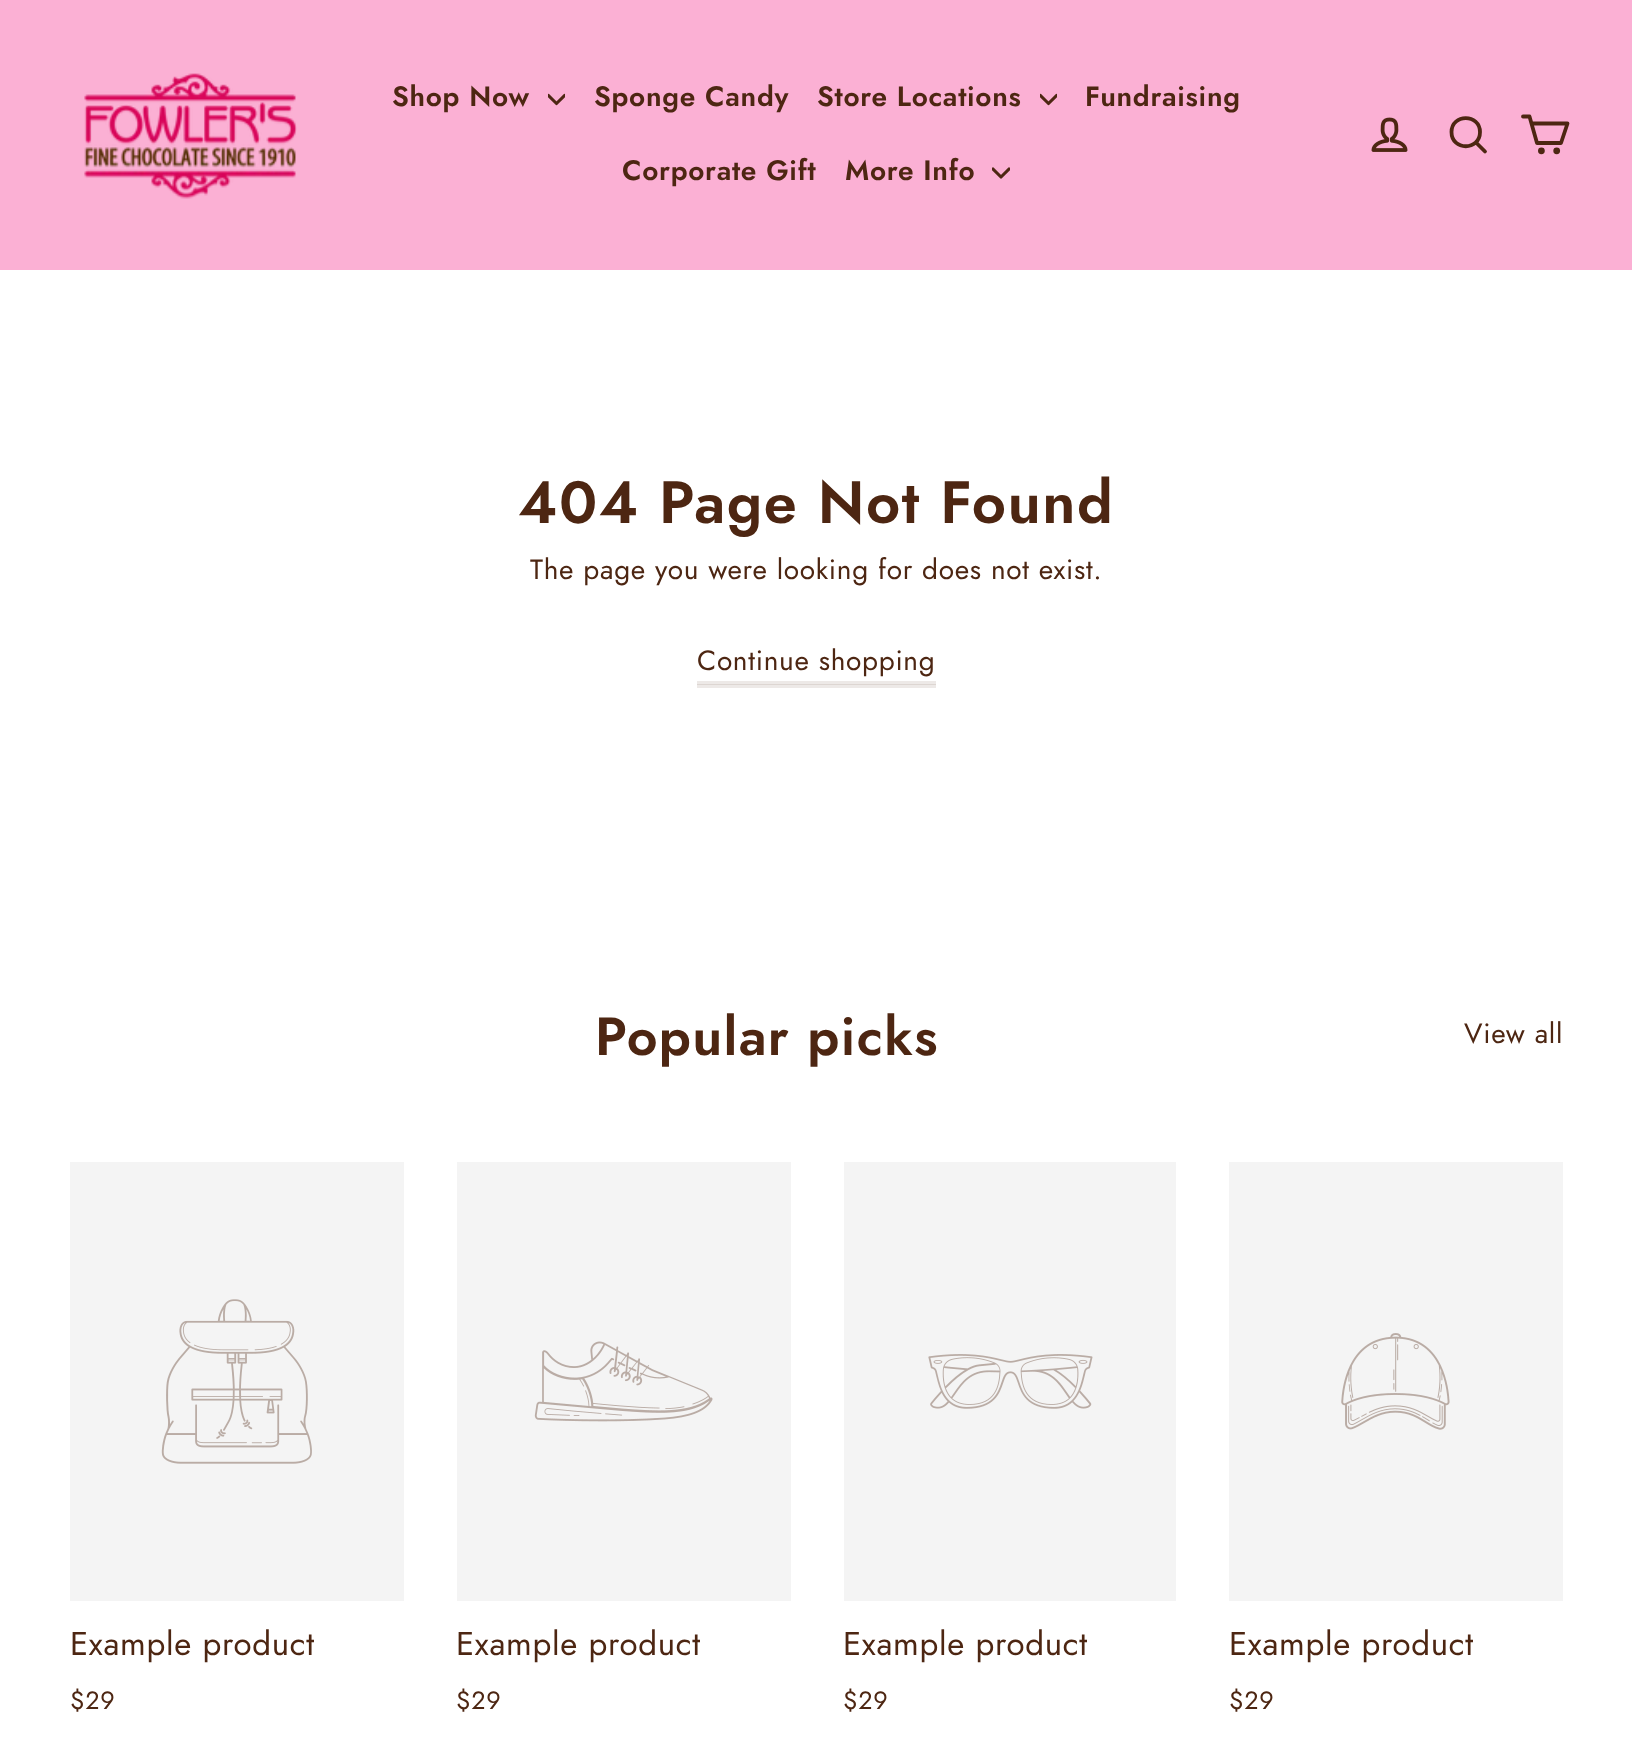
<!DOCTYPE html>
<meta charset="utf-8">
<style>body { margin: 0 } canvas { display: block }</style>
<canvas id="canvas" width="1632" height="1750"></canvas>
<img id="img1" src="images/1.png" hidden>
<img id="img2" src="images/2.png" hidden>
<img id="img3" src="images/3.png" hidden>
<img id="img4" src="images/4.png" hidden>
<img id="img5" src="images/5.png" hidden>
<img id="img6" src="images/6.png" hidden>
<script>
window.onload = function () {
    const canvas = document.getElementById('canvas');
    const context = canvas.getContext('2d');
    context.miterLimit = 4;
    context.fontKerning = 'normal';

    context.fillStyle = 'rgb(255, 255, 255)';
    context.fillRect(0, 0, 1632, 1750);
    context.fillStyle = 'rgb(237, 233, 231)';
    context.fillRect(697, 685, 239, 3);
    context.fillStyle = 'rgb(251, 176, 212)';
    context.fillRect(0, 0, 1632, 270);
    context.drawImage(document.getElementById('img1'), 84, 73, 213, 126);
    context.save();
    context.beginPath();
    context.rect(548, 91, 17, 18);
    context.clip();
    context.beginPath();
    context.moveTo(548.5, 95.5);
    context.lineTo(556.5, 103.5);
    context.lineTo(564.5, 95.5);
    context.strokeStyle = 'rgb(77, 38, 18)';
    context.lineWidth = 3.1;
    context.lineCap = 'round';
    context.lineJoin = 'round';
    context.stroke();
    context.restore();
    context.save();
    context.beginPath();
    context.rect(1040, 91, 17, 18);
    context.clip();
    context.beginPath();
    context.moveTo(1040.5, 95.5);
    context.lineTo(1048.5, 103.5);
    context.lineTo(1056.5, 95.5);
    context.strokeStyle = 'rgb(77, 38, 18)';
    context.lineWidth = 3.1;
    context.lineCap = 'round';
    context.lineJoin = 'round';
    context.stroke();
    context.restore();
    context.save();
    context.beginPath();
    context.rect(992, 165, 18, 17);
    context.clip();
    context.beginPath();
    context.moveTo(993, 169);
    context.lineTo(1001, 177);
    context.lineTo(1009, 169);
    context.strokeStyle = 'rgb(77, 38, 18)';
    context.lineWidth = 3.1;
    context.lineCap = 'round';
    context.lineJoin = 'round';
    context.stroke();
    context.restore();
    context.drawImage(document.getElementById('img2'), 1371, 117, 37, 35);
    context.beginPath();
    context.moveTo(1480, 132);
    context.bezierCurveTo(1480, 151, 1451.5, 151, 1451.5, 132);
    context.bezierCurveTo(1451.5, 113.5, 1480, 113.5, 1480, 132);
    context.closePath();
    context.moveTo(1485, 151.5);
    context.lineTo(1476, 142.5);
    context.strokeStyle = 'rgb(77, 38, 18)';
    context.lineWidth = 3.8;
    context.lineCap = 'round';
    context.lineJoin = 'round';
    context.stroke();
    context.beginPath();
    context.moveTo(1531.5, 123.5);
    context.lineTo(1567.5, 123.5);
    context.lineTo(1561, 143);
    context.lineTo(1537, 143);
    context.lineTo(1529.5, 116.5);
    context.lineTo(1523, 116.5);
    context.stroke();
    context.fillStyle = 'rgb(77, 38, 18)';
    context.beginPath();
    context.arc(1541.4, 150.8, 1.5, 0, 2 * Math.PI);
    context.fill();
    context.stroke();
    context.beginPath();
    context.arc(1556.7, 150.8, 1.5, 0, 2 * Math.PI);
    context.fill();
    context.stroke();
    context.fillStyle = 'rgb(237, 233, 231)';
    context.fillRect(697, 681, 239, 3);
    context.fillStyle = 'rgb(221, 214, 210)';
    context.fillRect(697, 684, 239, 1);
    context.fillStyle = 'rgb(244, 244, 244)';
    context.fillRect(70, 1162, 334, 439);
    context.drawImage(document.getElementById('img3'), 161, 1299, 151, 165);
    context.fillRect(457, 1162, 334, 439);
    context.drawImage(document.getElementById('img4'), 534, 1341, 179, 81);
    context.fillRect(844, 1162, 332, 439);
    context.drawImage(document.getElementById('img5'), 928, 1354, 165, 55);
    context.fillRect(1229, 1162, 334, 439);
    context.drawImage(document.getElementById('img6'), 1341, 1333, 109, 97);
    context.letterSpacing = '0.7px';
    context.font = '600 28px Jost';
    context.fillStyle = 'rgb(77, 38, 18)';
    context.fillText('Shop Now', 392, 106);
    context.fillText('Sponge Candy', 594, 106);
    context.fillText('Store Locations', 817, 106);
    context.fillText('Fundraising', 1085, 106);
    context.fillText('Corporate Gift', 622, 180);
    context.fillText('More Info', 845, 180);
    context.letterSpacing = '1.5px';
    context.font = '600 59.5px Jost';
    context.fillText('404 Page Not Found', 518, 523);
    context.letterSpacing = '0.7px';
    context.font = '28px Jost';
    context.fillText('The page you were looking for does not exist.', 530, 579);
    context.fillText('Continue shopping', 697, 670);
    context.letterSpacing = '1.3px';
    context.font = '600 53.5px Jost';
    context.fillText('Popular picks', 595, 1055);
    context.letterSpacing = '0.7px';
    context.font = '28px Jost';
    context.fillText('View all', 1464, 1043);
    context.font = '33px Jost';
    context.fillText('Example product', 70, 1655);
    context.font = '25px Jost';
    context.fillText('$29', 70, 1709);
    context.font = '33px Jost';
    context.fillText('Example product', 456, 1655);
    context.font = '25px Jost';
    context.fillText('$29', 456, 1709);
    context.font = '33px Jost';
    context.fillText('Example product', 843, 1655);
    context.font = '25px Jost';
    context.fillText('$29', 843, 1709);
    context.font = '33px Jost';
    context.fillText('Example product', 1229, 1655);
    context.font = '25px Jost';
    context.fillText('$29', 1229, 1709);
};
</script>
